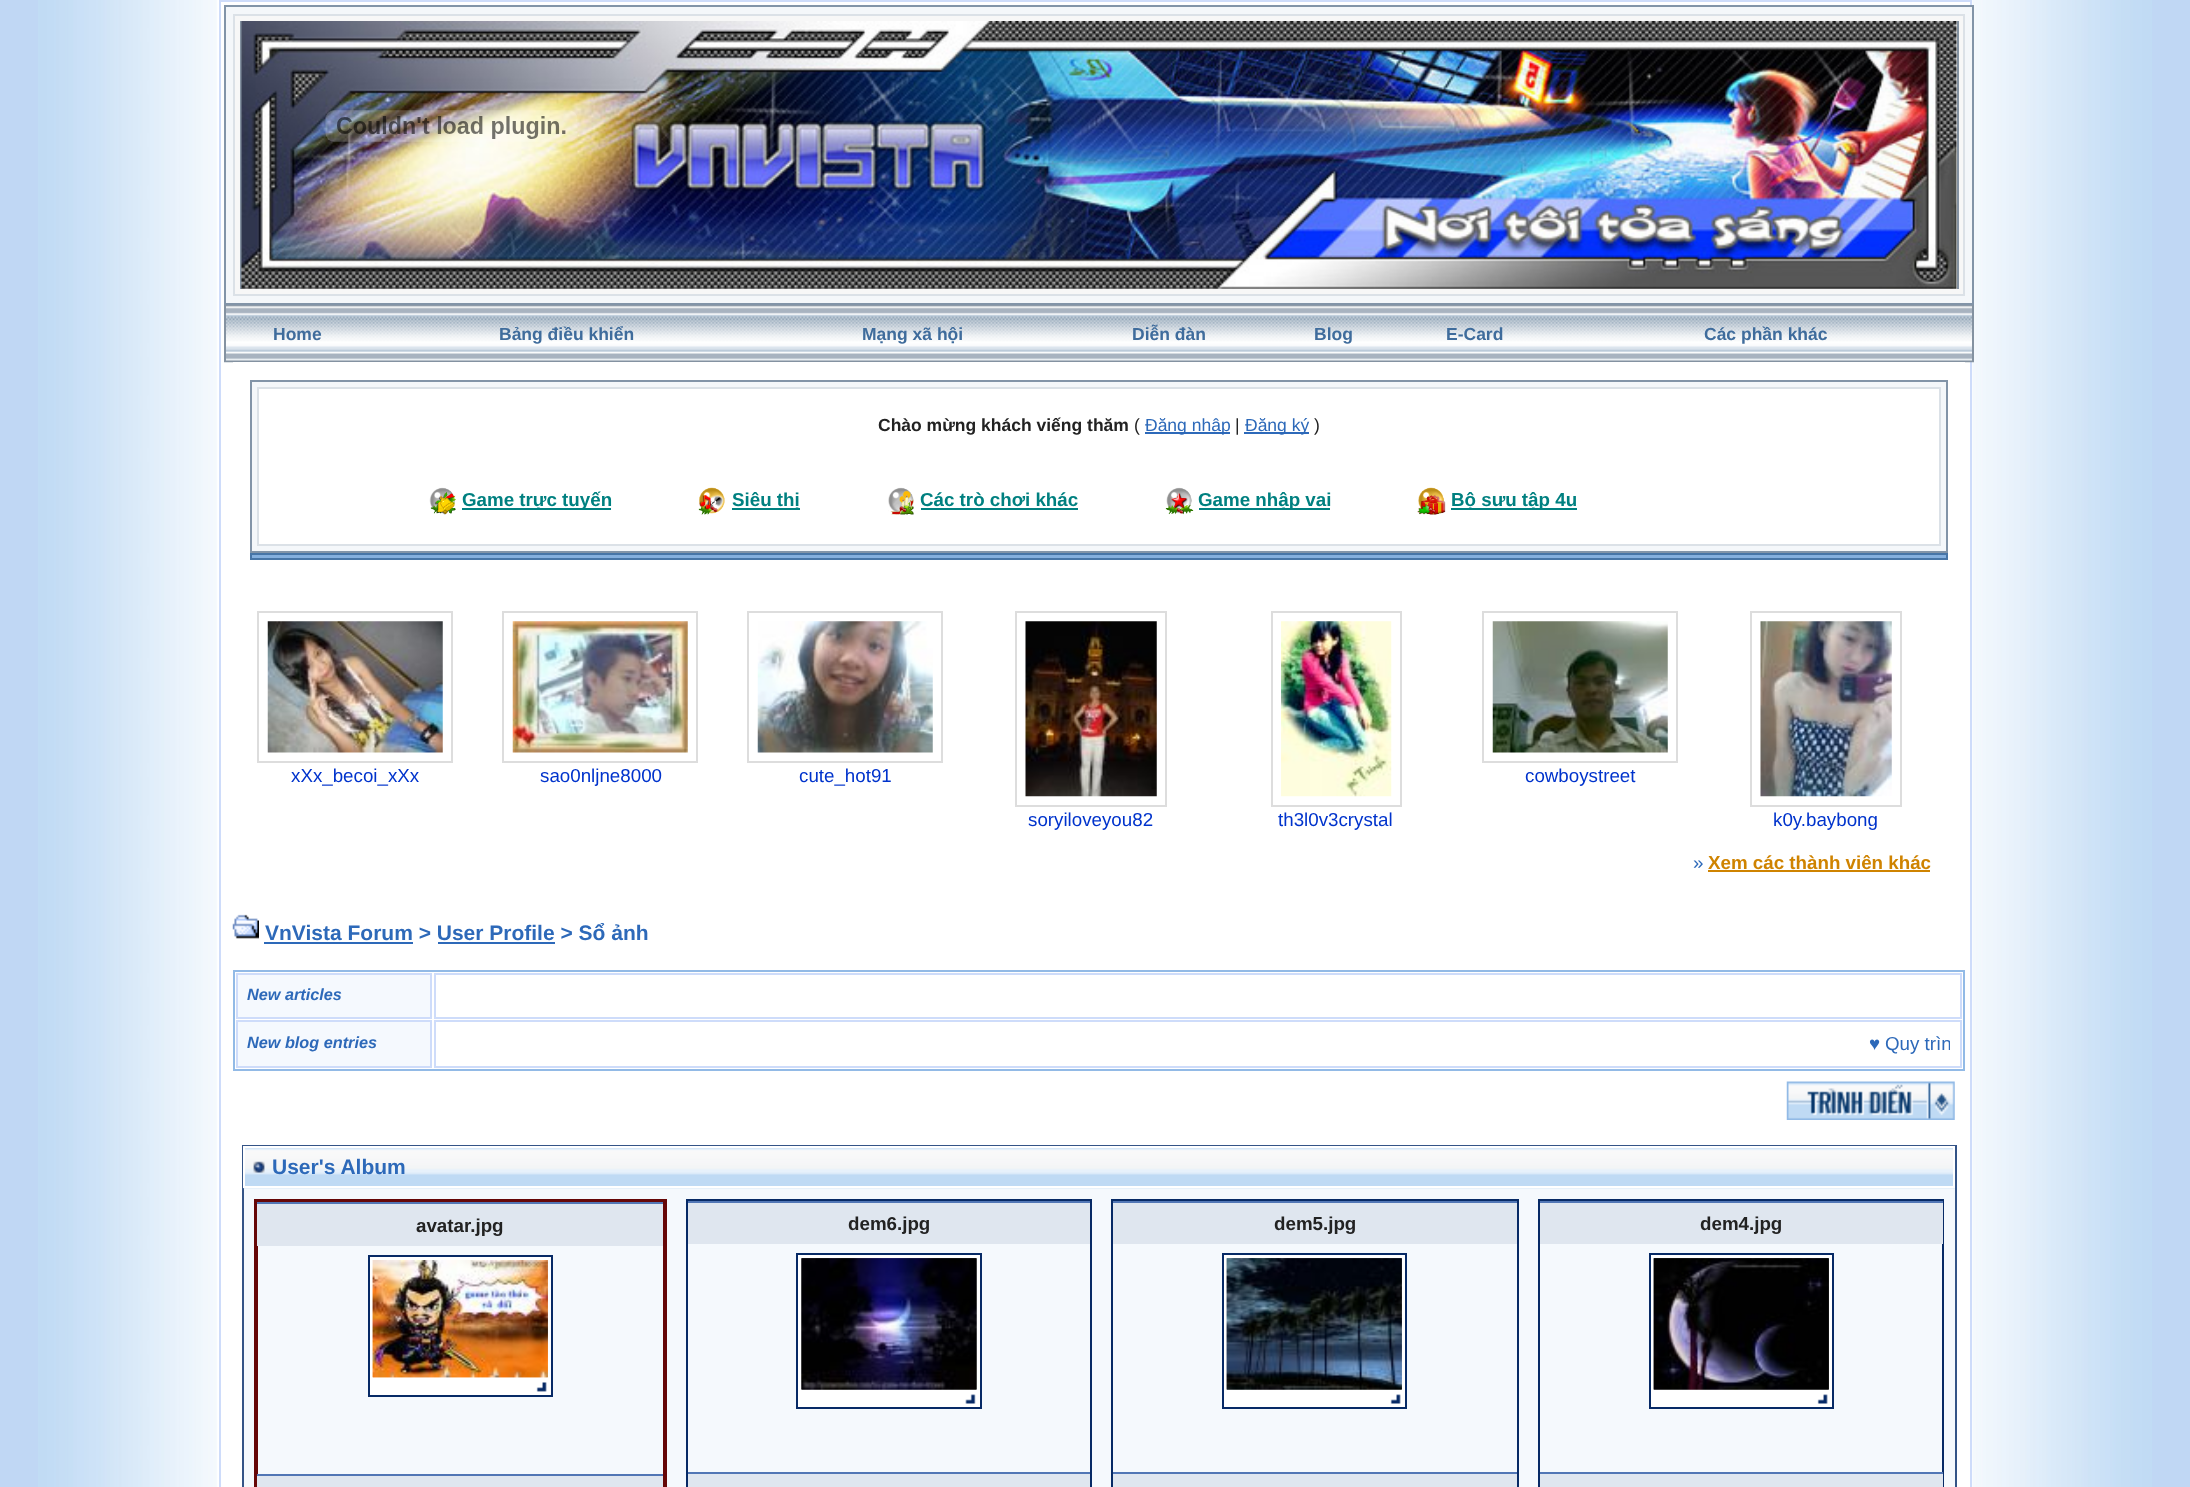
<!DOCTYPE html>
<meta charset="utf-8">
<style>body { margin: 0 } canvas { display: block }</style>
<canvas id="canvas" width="2190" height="1487"></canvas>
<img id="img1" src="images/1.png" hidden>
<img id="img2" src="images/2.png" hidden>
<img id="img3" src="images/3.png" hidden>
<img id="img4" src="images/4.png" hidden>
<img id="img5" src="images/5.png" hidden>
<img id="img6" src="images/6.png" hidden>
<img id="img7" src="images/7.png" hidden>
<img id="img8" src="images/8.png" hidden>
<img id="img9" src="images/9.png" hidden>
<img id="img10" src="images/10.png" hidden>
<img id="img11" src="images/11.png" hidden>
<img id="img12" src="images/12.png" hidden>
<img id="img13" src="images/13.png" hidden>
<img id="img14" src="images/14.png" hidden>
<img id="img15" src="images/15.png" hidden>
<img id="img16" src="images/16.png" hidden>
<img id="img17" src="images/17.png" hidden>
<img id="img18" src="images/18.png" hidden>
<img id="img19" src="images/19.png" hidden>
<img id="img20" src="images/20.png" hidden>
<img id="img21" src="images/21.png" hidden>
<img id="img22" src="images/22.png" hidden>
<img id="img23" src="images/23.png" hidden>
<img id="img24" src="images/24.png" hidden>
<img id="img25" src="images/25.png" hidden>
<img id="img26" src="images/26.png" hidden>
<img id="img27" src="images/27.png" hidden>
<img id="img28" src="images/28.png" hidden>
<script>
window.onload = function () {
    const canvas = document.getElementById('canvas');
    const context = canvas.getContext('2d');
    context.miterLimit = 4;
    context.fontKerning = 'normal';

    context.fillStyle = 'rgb(192, 215, 244)';
    context.fillRect(0, 0, 2190, 1487);
    context.drawImage(document.getElementById('img1'), 38, 0, 2114, 1487);
    context.strokeStyle = 'rgb(206, 220, 250)';
    context.lineWidth = 2;
    context.strokeRect(220, 1, 1751, 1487);
    context.fillStyle = 'rgb(244, 247, 250)';
    context.beginPath();
    context.rect(225, 6, 1748, 298);
    context.fill();
    context.strokeStyle = 'rgb(130, 148, 168)';
    context.stroke();
    context.fillStyle = 'rgb(247, 247, 247)';
    context.beginPath();
    context.rect(234, 15, 1730, 280);
    context.fill();
    context.strokeStyle = 'rgb(219, 225, 231)';
    context.stroke();
    context.fillStyle = 'rgb(132, 146, 161)';
    context.fillRect(1957, 21, 2, 268);
    context.fillRect(240, 21, 2, 268);
    context.drawImage(document.getElementById('img2'), 241, 21, 1716, 268);
    context.drawImage(document.getElementById('img3'), 325, 110, 253, 32);
    context.drawImage(document.getElementById('img4'), 224, 305, 1750, 58);
    context.fillRect(1972, 305, 2, 57);
    context.fillRect(224, 305, 2, 57);
    context.fillStyle = 'rgb(255, 255, 255)';
    context.fillRect(233, 362, 1732, 1);
    context.fillStyle = 'rgb(244, 247, 250)';
    context.beginPath();
    context.rect(251, 381, 1696, 171);
    context.fill();
    context.strokeStyle = 'rgb(130, 148, 168)';
    context.stroke();
    context.fillStyle = 'rgb(255, 255, 255)';
    context.beginPath();
    context.rect(258, 388, 1682, 157);
    context.fill();
    context.strokeStyle = 'rgb(219, 225, 231)';
    context.stroke();
    context.fillStyle = 'rgb(45, 105, 185)';
    context.fillRect(1145, 432, 85, 2);
    context.fillRect(1244, 432, 65, 2);
    context.drawImage(document.getElementById('img5'), 429, 487, 27, 28);
    context.fillStyle = 'rgb(0, 128, 128)';
    context.fillRect(462, 508, 149, 2);
    context.drawImage(document.getElementById('img6'), 698, 487, 27, 28);
    context.fillRect(732, 508, 68, 2);
    context.drawImage(document.getElementById('img7'), 888, 487, 26, 28);
    context.fillRect(921, 508, 157, 2);
    context.drawImage(document.getElementById('img8'), 1165, 487, 29, 28);
    context.fillRect(1199, 508, 131, 2);
    context.drawImage(document.getElementById('img9'), 1417, 487, 29, 28);
    context.fillRect(1451, 508, 126, 2);
    context.fillStyle = 'rgb(132, 175, 222)';
    context.beginPath();
    context.rect(251, 554, 1696, 5);
    context.fill();
    context.strokeStyle = 'rgb(71, 117, 167)';
    context.stroke();
    context.strokeStyle = 'rgb(221, 221, 221)';
    context.strokeRect(258, 612, 194, 150);
    context.drawImage(document.getElementById('img10'), 267, 621, 176, 132);
    context.strokeRect(503, 612, 194, 150);
    context.drawImage(document.getElementById('img11'), 512, 621, 176, 132);
    context.strokeRect(748, 612, 194, 150);
    context.drawImage(document.getElementById('img12'), 757, 621, 176, 132);
    context.strokeRect(1483, 612, 194, 150);
    context.drawImage(document.getElementById('img13'), 1492, 621, 176, 132);
    context.strokeRect(1016, 612, 150, 194);
    context.drawImage(document.getElementById('img14'), 1025, 621, 132, 176);
    context.strokeRect(1272, 612, 129, 194);
    context.drawImage(document.getElementById('img15'), 1281, 621, 111, 176);
    context.strokeRect(1751, 612, 150, 194);
    context.drawImage(document.getElementById('img16'), 1760, 621, 132, 176);
    context.fillStyle = 'rgb(207, 131, 0)';
    context.fillRect(1708, 870, 222, 2);
    context.drawImage(document.getElementById('img17'), 232, 914, 27, 25);
    context.fillStyle = 'rgb(45, 105, 185)';
    context.fillRect(264, 942, 149, 2);
    context.fillRect(438, 942, 117, 2);
    context.strokeStyle = 'rgb(146, 186, 230)';
    context.strokeRect(234, 971, 1730, 99);
    context.fillStyle = 'rgb(245, 249, 254)';
    context.beginPath();
    context.rect(237, 974, 194, 44);
    context.fill();
    context.strokeStyle = 'rgb(206, 220, 250)';
    context.stroke();
    context.strokeRect(435, 974, 1526, 44);
    context.beginPath();
    context.rect(237, 1021, 194, 46);
    context.fill();
    context.stroke();
    context.strokeRect(435, 1021, 1526, 46);
    context.drawImage(document.getElementById('img18'), 1786, 1081, 169, 39);
    context.fillStyle = 'rgb(245, 249, 253)';
    context.fillRect(244, 1188, 1711, 299);
    context.strokeStyle = 'rgb(52, 84, 135)';
    context.strokeRect(243, 1146, 1713, 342);
    context.drawImage(document.getElementById('img19'), 243, 1148, 1712, 41);
    context.strokeStyle = 'rgb(255, 255, 255)';
    context.strokeRect(244, 1147, 1710, 40);
    context.drawImage(document.getElementById('img20'), 253, 1161, 12, 12);
    context.strokeStyle = 'rgb(102, 7, 7)';
    context.lineWidth = 4;
    context.strokeRect(256, 1201, 409, 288);
    context.fillStyle = 'rgb(223, 230, 239)';
    context.fillRect(257, 1204, 406, 42);
    context.fillStyle = 'rgb(81, 118, 181)';
    context.fillRect(257, 1202, 406, 2);
    context.fillStyle = 'rgb(255, 255, 255)';
    context.fillRect(370, 1257, 181, 138);
    context.drawImage(document.getElementById('img21'), 372, 1260, 176, 132);
    context.strokeStyle = 'rgb(7, 42, 102)';
    context.lineWidth = 2;
    context.strokeRect(369, 1256, 183, 140);
    context.drawImage(document.getElementById('img22'), 372, 1260, 176, 118);
    context.fillStyle = 'rgb(223, 230, 239)';
    context.fillRect(257, 1476, 406, 11);
    context.fillStyle = 'rgb(81, 118, 181)';
    context.fillRect(257, 1474, 406, 2);
    context.strokeRect(687, 1200, 404, 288);
    context.fillStyle = 'rgb(223, 230, 239)';
    context.fillRect(688, 1203, 402, 41);
    context.fillStyle = 'rgb(81, 118, 181)';
    context.fillRect(688, 1201, 402, 2);
    context.fillStyle = 'rgb(255, 255, 255)';
    context.fillRect(798, 1255, 182, 152);
    context.drawImage(document.getElementById('img23'), 801, 1258, 176, 146);
    context.strokeRect(797, 1254, 184, 154);
    context.drawImage(document.getElementById('img24'), 801, 1258, 176, 132);
    context.fillStyle = 'rgb(223, 230, 239)';
    context.fillRect(688, 1474, 402, 13);
    context.fillStyle = 'rgb(81, 118, 181)';
    context.fillRect(688, 1472, 402, 2);
    context.strokeRect(1112, 1200, 406, 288);
    context.fillStyle = 'rgb(223, 230, 239)';
    context.fillRect(1113, 1203, 404, 41);
    context.fillStyle = 'rgb(81, 118, 181)';
    context.fillRect(1113, 1201, 404, 2);
    context.fillStyle = 'rgb(255, 255, 255)';
    context.fillRect(1224, 1255, 181, 152);
    context.drawImage(document.getElementById('img25'), 1226, 1258, 176, 146);
    context.strokeRect(1223, 1254, 183, 154);
    context.drawImage(document.getElementById('img26'), 1226, 1258, 176, 132);
    context.fillStyle = 'rgb(223, 230, 239)';
    context.fillRect(1113, 1474, 404, 13);
    context.fillStyle = 'rgb(81, 118, 181)';
    context.fillRect(1113, 1472, 404, 2);
    context.strokeRect(1539, 1200, 404, 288);
    context.fillStyle = 'rgb(223, 230, 239)';
    context.fillRect(1540, 1203, 403, 41);
    context.fillStyle = 'rgb(81, 118, 181)';
    context.fillRect(1540, 1201, 403, 2);
    context.fillStyle = 'rgb(255, 255, 255)';
    context.fillRect(1651, 1255, 181, 152);
    context.drawImage(document.getElementById('img27'), 1653, 1258, 176, 146);
    context.strokeRect(1650, 1254, 183, 154);
    context.drawImage(document.getElementById('img28'), 1653, 1258, 176, 132);
    context.fillStyle = 'rgb(223, 230, 239)';
    context.fillRect(1540, 1474, 403, 13);
    context.fillStyle = 'rgb(81, 118, 181)';
    context.fillRect(1540, 1472, 403, 2);
    context.font = 'bold 17.5px Liberation Sans';
    context.fillStyle = 'rgb(63, 108, 156)';
    context.fillText('Home', 273, 340);
    context.fillText('Bảng điều khiển', 499, 340);
    context.fillText('Mạng xã hội', 862, 340);
    context.fillText('Diễn đàn', 1132, 340);
    context.fillText('Blog', 1314, 340);
    context.fillText('E-Card', 1446, 340);
    context.fillText('Các phần khác', 1704, 340);
    context.fillStyle = 'rgb(34, 34, 34)';
    context.fillText('Chào mừng khách viếng thăm', 878, 431);
    context.font = '17.5px Liberation Sans';
    context.fillText('(', 1134, 431);
    context.fillStyle = 'rgb(45, 105, 185)';
    context.fillText('Đăng nhập', 1145, 431);
    context.fillStyle = 'rgb(34, 34, 34)';
    context.fillText('|', 1235, 431);
    context.fillStyle = 'rgb(45, 105, 185)';
    context.fillText('Đăng ký', 1245, 431);
    context.fillStyle = 'rgb(34, 34, 34)';
    context.fillText(')', 1314, 431);
    context.font = 'bold 18.75px Liberation Sans';
    context.fillStyle = 'rgb(0, 128, 128)';
    context.fillText('Game trực tuyến', 462, 506);
    context.fillText('Siêu thị', 732, 506);
    context.fillText('Các trò chơi khác', 920, 506);
    context.fillText('Game nhập vai', 1198, 506);
    context.fillText('Bộ sưu tập 4u', 1451, 506);
    context.font = '18.75px Liberation Sans';
    context.fillStyle = 'rgb(0, 51, 204)';
    context.fillText('xXx_becoi_xXx', 291, 782);
    context.fillText('sao0nljne8000', 540, 782);
    context.fillText('cute_hot91', 799, 782);
    context.fillText('cowboystreet', 1525, 782);
    context.fillText('soryiloveyou82', 1028, 826);
    context.fillText('th3l0v3crystal', 1278, 826);
    context.fillText('k0y.baybong', 1773, 826);
    context.fillStyle = 'rgb(45, 105, 185)';
    context.fillText('»', 1693, 869);
    context.font = 'bold 18.75px Liberation Sans';
    context.fillStyle = 'rgb(207, 131, 0)';
    context.fillText('Xem các thành viên khác', 1708, 869);
    context.font = 'bold 21px Liberation Sans';
    context.fillStyle = 'rgb(45, 105, 185)';
    context.fillText('VnVista Forum > User Profile > Sổ ảnh', 265, 940);
    context.font = 'italic bold 16.25px Liberation Sans';
    context.fillText('New articles', 247, 1000);
    context.fillText('New blog entries', 247, 1048);
    context.font = '18.75px Liberation Sans';
    context.fillText('♥', 1869, 1050);
    context.save();
    context.beginPath();
    context.rect(445, 1031, 1505, 26);
    context.clip();
    context.fillText('Quy trìn', 1885, 1050);
    context.restore();
    context.font = 'bold 21px Liberation Sans';
    context.fillText('User\'s Album', 272, 1174);
    context.font = 'bold 18.75px Liberation Sans';
    context.fillStyle = 'rgb(34, 34, 34)';
    context.fillText('avatar.jpg', 416, 1232);
    context.fillText('dem6.jpg', 848, 1230);
    context.fillText('dem5.jpg', 1274, 1230);
    context.fillText('dem4.jpg', 1700, 1230);
};
</script>
